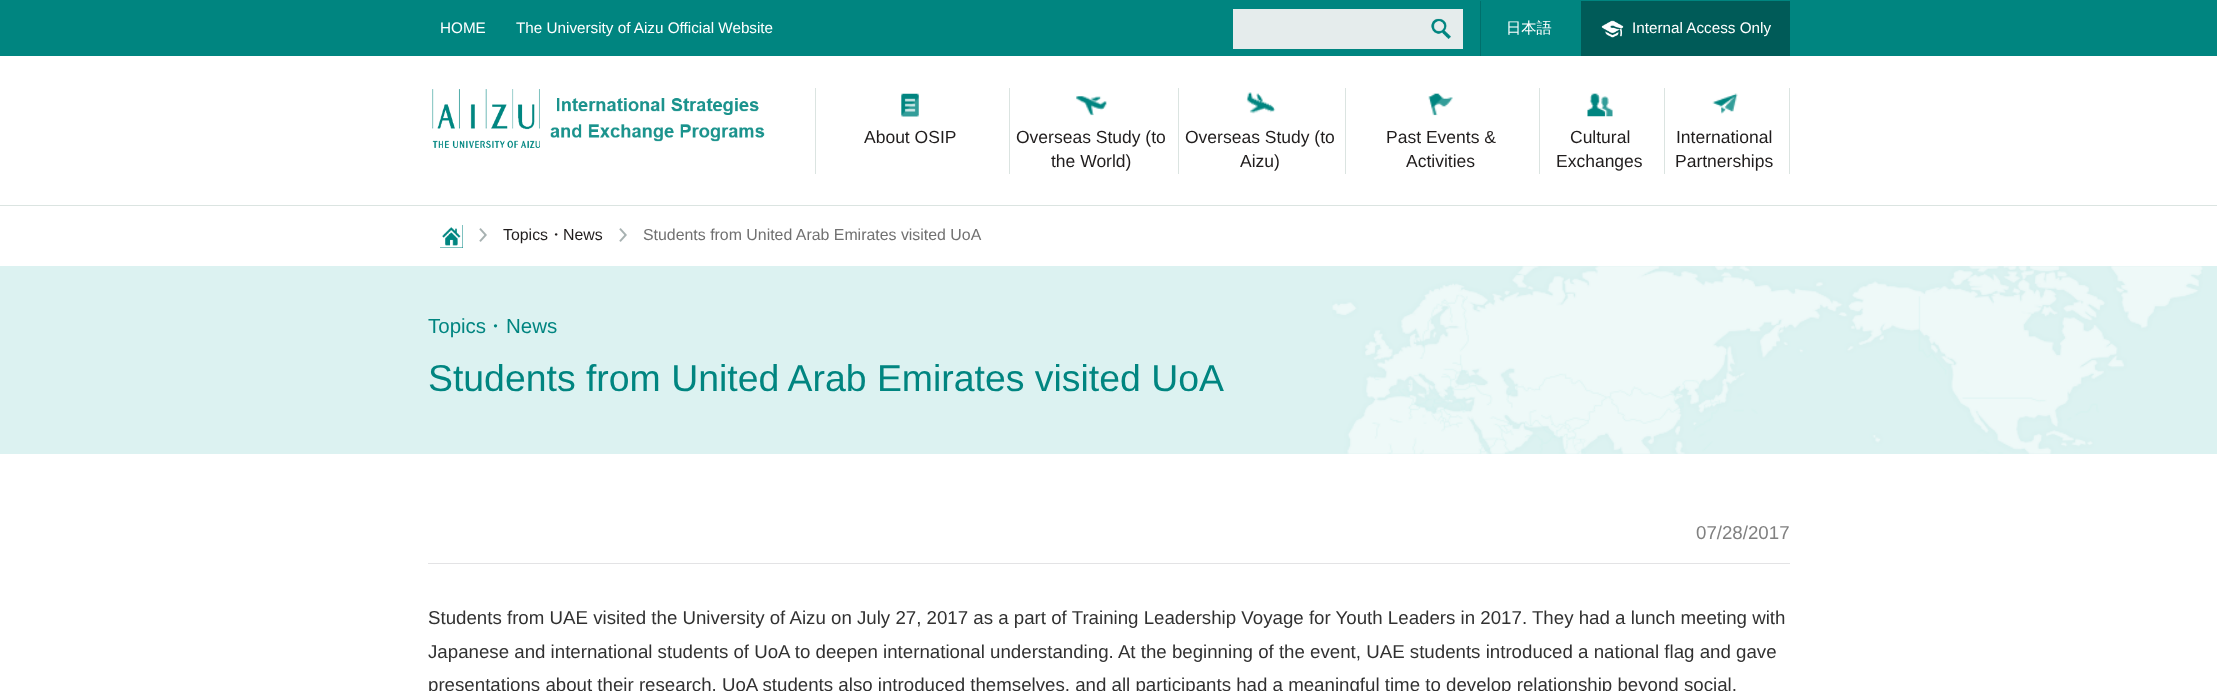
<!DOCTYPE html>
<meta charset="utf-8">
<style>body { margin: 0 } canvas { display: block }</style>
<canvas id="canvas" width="2217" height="691"></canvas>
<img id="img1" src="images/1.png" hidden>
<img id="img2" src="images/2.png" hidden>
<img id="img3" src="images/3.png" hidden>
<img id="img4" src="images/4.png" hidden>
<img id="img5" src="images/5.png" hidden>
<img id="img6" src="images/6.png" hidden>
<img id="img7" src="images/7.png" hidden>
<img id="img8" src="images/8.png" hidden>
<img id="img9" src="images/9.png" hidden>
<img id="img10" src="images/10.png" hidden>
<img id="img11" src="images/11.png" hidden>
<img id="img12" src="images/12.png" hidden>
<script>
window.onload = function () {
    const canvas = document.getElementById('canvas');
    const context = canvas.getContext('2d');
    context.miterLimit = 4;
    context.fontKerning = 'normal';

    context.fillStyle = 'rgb(255, 255, 255)';
    context.fillRect(0, 0, 2217, 691);
    context.fillStyle = 'rgb(0, 133, 128)';
    context.fillRect(0, 0, 2217, 56);
    context.fillStyle = 'rgb(229, 236, 236)';
    context.fillRect(1233, 9, 230, 40);
    context.drawImage(document.getElementById('img1'), 1431, 18, 20, 21);
    context.fillStyle = 'rgb(0, 111, 107)';
    context.fillRect(1480, 1, 1, 55);
    context.fillStyle = 'rgb(0, 91, 88)';
    context.fillRect(1581, 1, 209, 55);
    context.drawImage(document.getElementById('img2'), 1601, 20, 23, 18);
    context.drawImage(document.getElementById('img3'), 432, 89, 333, 59);
    context.fillStyle = 'rgb(219, 228, 225)';
    context.fillRect(1789, 88, 1, 86);
    context.fillRect(815, 88, 1, 86);
    context.drawImage(document.getElementById('img4'), 901, 93, 18, 24);
    context.fillRect(1009, 88, 1, 86);
    context.drawImage(document.getElementById('img5'), 1076, 96, 31, 20);
    context.fillRect(1178, 88, 1, 86);
    context.drawImage(document.getElementById('img6'), 1246, 92, 30, 22);
    context.fillRect(1345, 88, 1, 86);
    context.drawImage(document.getElementById('img7'), 1428, 93, 25, 23);
    context.fillRect(1539, 88, 1, 86);
    context.drawImage(document.getElementById('img8'), 1587, 93, 26, 24);
    context.fillRect(1664, 88, 1, 86);
    context.drawImage(document.getElementById('img9'), 1712, 93, 26, 21);
    context.fillRect(0, 205, 2217, 1);
    context.fillStyle = 'rgb(0, 133, 128)';
    context.fillRect(440, 225, 23, 23);
    context.drawImage(document.getElementById('img10'), 440, 225, 23, 23);
    context.drawImage(document.getElementById('img11'), 479, 228, 8, 14);
    context.drawImage(document.getElementById('img11'), 619, 228, 8, 14);
    context.fillStyle = 'rgb(220, 242, 241)';
    context.fillRect(0, 266, 2217, 188);
    context.drawImage(document.getElementById('img12'), 1332, 266, 871, 188);
    context.fillStyle = 'rgb(227, 227, 229)';
    context.fillRect(428, 563, 1362, 1);
    context.font = '15.25px Liberation Sans';
    context.fillStyle = 'rgb(255, 255, 255)';
    context.fillText('HOME', 440, 33);
    context.fillText('The University of Aizu Official Website', 516, 33);
    context.font = '500 15.25px WenQuanYi Zen Hei';
    context.fillText('日本語', 1506, 33);
    context.font = '15.25px Liberation Sans';
    context.fillText('Internal Access Only', 1632, 33);
    context.font = '17.5px Liberation Sans';
    context.fillStyle = 'rgb(32, 29, 29)';
    context.fillText('About OSIP', 864, 143);
    context.fillText('Overseas Study (to', 1016, 143);
    context.fillText('the World)', 1051, 167);
    context.fillText('Overseas Study (to', 1185, 143);
    context.fillText('Aizu)', 1240, 167);
    context.fillText('Past Events &', 1386, 143);
    context.fillText('Activities', 1406, 167);
    context.fillText('Cultural', 1570, 143);
    context.fillText('Exchanges', 1556, 167);
    context.fillText('International', 1676, 143);
    context.fillText('Partnerships', 1675, 167);
    context.font = '15.9px Liberation Sans';
    context.fillText('Topics', 503, 240);
    context.font = '500 15.9px WenQuanYi Zen Hei';
    context.fillText('・', 548, 240);
    context.font = '15.9px Liberation Sans';
    context.fillText('News', 563, 240);
    context.fillStyle = 'rgb(113, 113, 113)';
    context.fillText('Students from United Arab Emirates visited UoA', 643, 240);
    context.font = '20.5px Liberation Sans';
    context.fillStyle = 'rgb(0, 133, 128)';
    context.fillText('Topics', 428, 333);
    context.font = '500 20.5px WenQuanYi Zen Hei';
    context.fillText('・', 485, 333);
    context.font = '20.5px Liberation Sans';
    context.fillText('News', 506, 333);
    context.font = '37.4px Liberation Sans';
    context.fillText('Students from United Arab Emirates visited UoA', 428, 391);
    context.font = '18.7px Liberation Sans';
    context.fillStyle = 'rgb(129, 129, 129)';
    context.fillText('07/28/2017', 1696, 539);
    context.fillStyle = 'rgb(49, 49, 49)';
    context.fillText('Students from UAE visited the University of Aizu on July 27, 2017 as a part of Training Leadership Voyage for Youth Leaders in 2017. They had a lunch meeting with', 428, 624);
    context.fillText('Japanese and international students of UoA to deepen international understanding. At the beginning of the event, UAE students introduced a national flag and gave', 428, 658);
    context.fillText('presentations about their research. UoA students also introduced themselves, and all participants had a meaningful time to develop relationship beyond social,', 428, 691);
};
</script>
